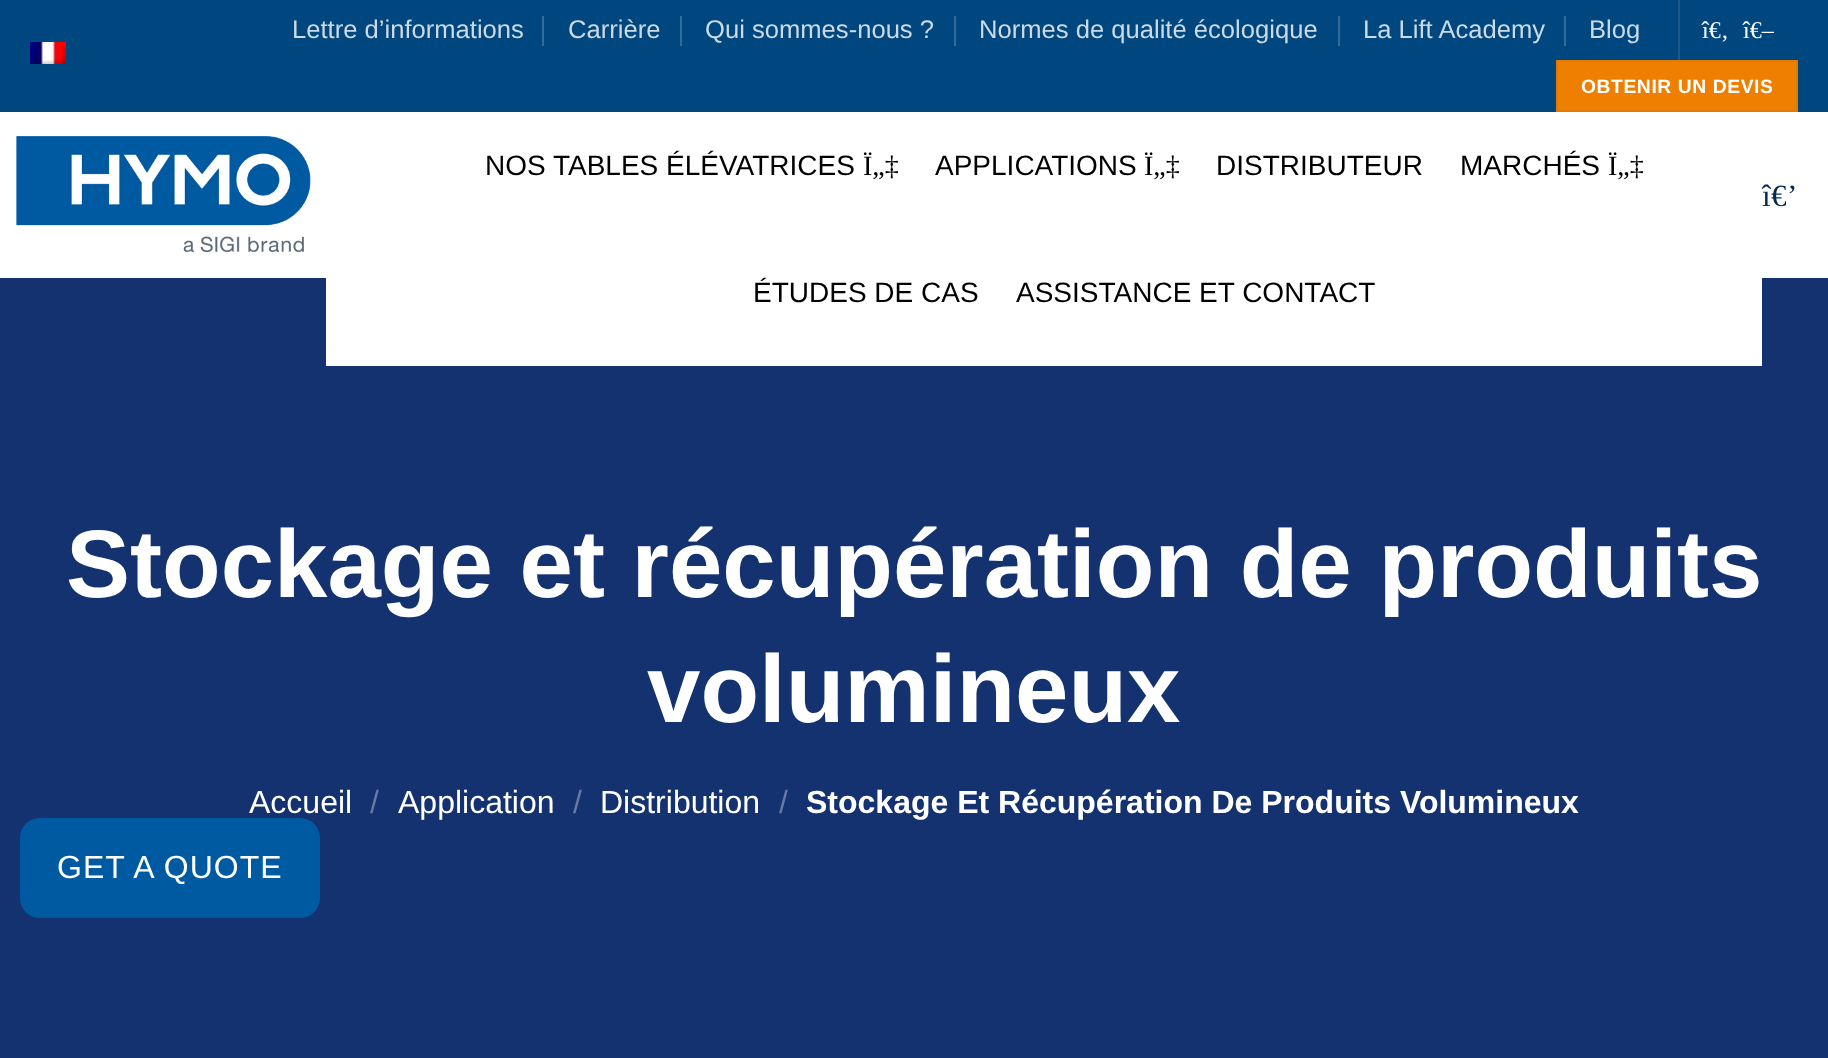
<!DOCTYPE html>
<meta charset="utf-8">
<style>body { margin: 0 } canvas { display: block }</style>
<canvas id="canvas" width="1828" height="1058"></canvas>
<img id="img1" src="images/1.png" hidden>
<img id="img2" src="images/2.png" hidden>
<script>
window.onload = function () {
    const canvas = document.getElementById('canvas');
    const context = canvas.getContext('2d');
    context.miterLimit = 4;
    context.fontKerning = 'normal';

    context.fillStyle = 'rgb(255, 255, 255)';
    context.fillRect(0, 0, 1828, 1058);
    context.fillStyle = 'rgb(0, 71, 127)';
    context.fillRect(0, 0, 1828, 112);
    context.drawImage(document.getElementById('img1'), 30, 42, 36, 22);
    context.fillStyle = 'rgb(51, 108, 153)';
    context.fillRect(542, 16, 2, 30);
    context.fillRect(680, 16, 2, 30);
    context.fillRect(954, 16, 2, 30);
    context.fillRect(1338, 16, 2, 30);
    context.fillRect(1564, 16, 2, 30);
    context.fillStyle = 'rgb(26, 89, 140)';
    context.fillRect(1678, 0, 2, 60);
    context.fillStyle = 'rgb(239, 127, 1)';
    context.beginPath();
    context.rect(1557, 61, 240, 50);
    context.fill();
    context.strokeStyle = 'rgb(227, 121, 1)';
    context.lineWidth = 2;
    context.stroke();
    context.drawImage(document.getElementById('img2'), 16, 136, 295, 116);
    context.fillStyle = 'rgb(20, 50, 112)';
    context.fillRect(0, 278, 1828, 780);
    context.fillStyle = 'rgb(0, 90, 162)';
    context.beginPath();
    context.roundRect(20, 818, 300, 100, 20);
    context.fill();
    context.font = '25.6px Liberation Sans';
    context.fillStyle = 'rgb(204, 218, 229)';
    context.fillText('Lettre d’informations', 292, 38);
    context.fillText('Carrière', 568, 38);
    context.fillText('Qui sommes-nous ?', 705, 38);
    context.fillText('Normes de qualité écologique', 979, 38);
    context.fillText('La Lift Academy', 1363, 38);
    context.fillText('Blog', 1589, 38);
    context.font = '24px Liberation Serif';
    context.fillStyle = 'rgb(255, 255, 255)';
    context.fillText('î€‚', 1702, 38);
    context.fillText('î€–', 1743, 38);
    context.letterSpacing = '0.6px';
    context.font = 'bold 19.25px Liberation Sans';
    context.fillText('OBTENIR UN DEVIS', 1581, 93);
    context.letterSpacing = '0px';
    context.font = '28px Liberation Sans';
    context.fillStyle = 'rgb(0, 0, 0)';
    context.fillText('NOS TABLES ÉLÉVATRICES', 485, 175);
    context.font = '28px Liberation Serif';
    context.fillText('Ï„‡', 863, 175);
    context.font = '28px Liberation Sans';
    context.fillText('APPLICATIONS', 935, 175);
    context.font = '28px Liberation Serif';
    context.fillText('Ï„‡', 1144, 175);
    context.font = '28px Liberation Sans';
    context.fillText('DISTRIBUTEUR', 1216, 175);
    context.fillText('MARCHÉS', 1460, 175);
    context.font = '28px Liberation Serif';
    context.fillText('Ï„‡', 1608, 175);
    context.letterSpacing = '0.5px';
    context.font = '31px Liberation Serif';
    context.fillStyle = 'rgb(3, 42, 79)';
    context.fillText('î€’', 1762, 206);
    context.fillStyle = 'rgb(255, 255, 255)';
    context.fillRect(326, 188, 1436, 178);
    context.letterSpacing = '0px';
    context.font = '28px Liberation Sans';
    context.fillStyle = 'rgb(0, 0, 0)';
    context.fillText('ASSISTANCE ET CONTACT', 1016, 302);
    context.fillText('ÉTUDES DE CAS', 753, 302);
    context.font = 'bold 96px Liberation Sans';
    context.fillStyle = 'rgb(255, 255, 255)';
    context.fillText('Stockage et récupération de produits', 66, 597);
    context.fillText('volumineux', 647, 722);
    context.font = '32px Liberation Sans';
    context.fillText('Accueil', 249, 813);
    context.fillStyle = 'rgb(102, 122, 162)';
    context.fillText('/', 370, 813);
    context.fillStyle = 'rgb(255, 255, 255)';
    context.fillText('Application', 398, 813);
    context.fillStyle = 'rgb(102, 122, 162)';
    context.fillText('/', 573, 813);
    context.fillStyle = 'rgb(255, 255, 255)';
    context.fillText('Distribution', 600, 813);
    context.fillStyle = 'rgb(102, 122, 162)';
    context.fillText('/', 779, 813);
    context.font = 'bold 32px Liberation Sans';
    context.fillStyle = 'rgb(255, 255, 255)';
    context.fillText('Stockage Et Récupération De Produits Volumineux', 806, 813);
    context.letterSpacing = '1px';
    context.font = '32px Liberation Sans';
    context.fillText('GET A QUOTE', 57, 878);
};
</script>
